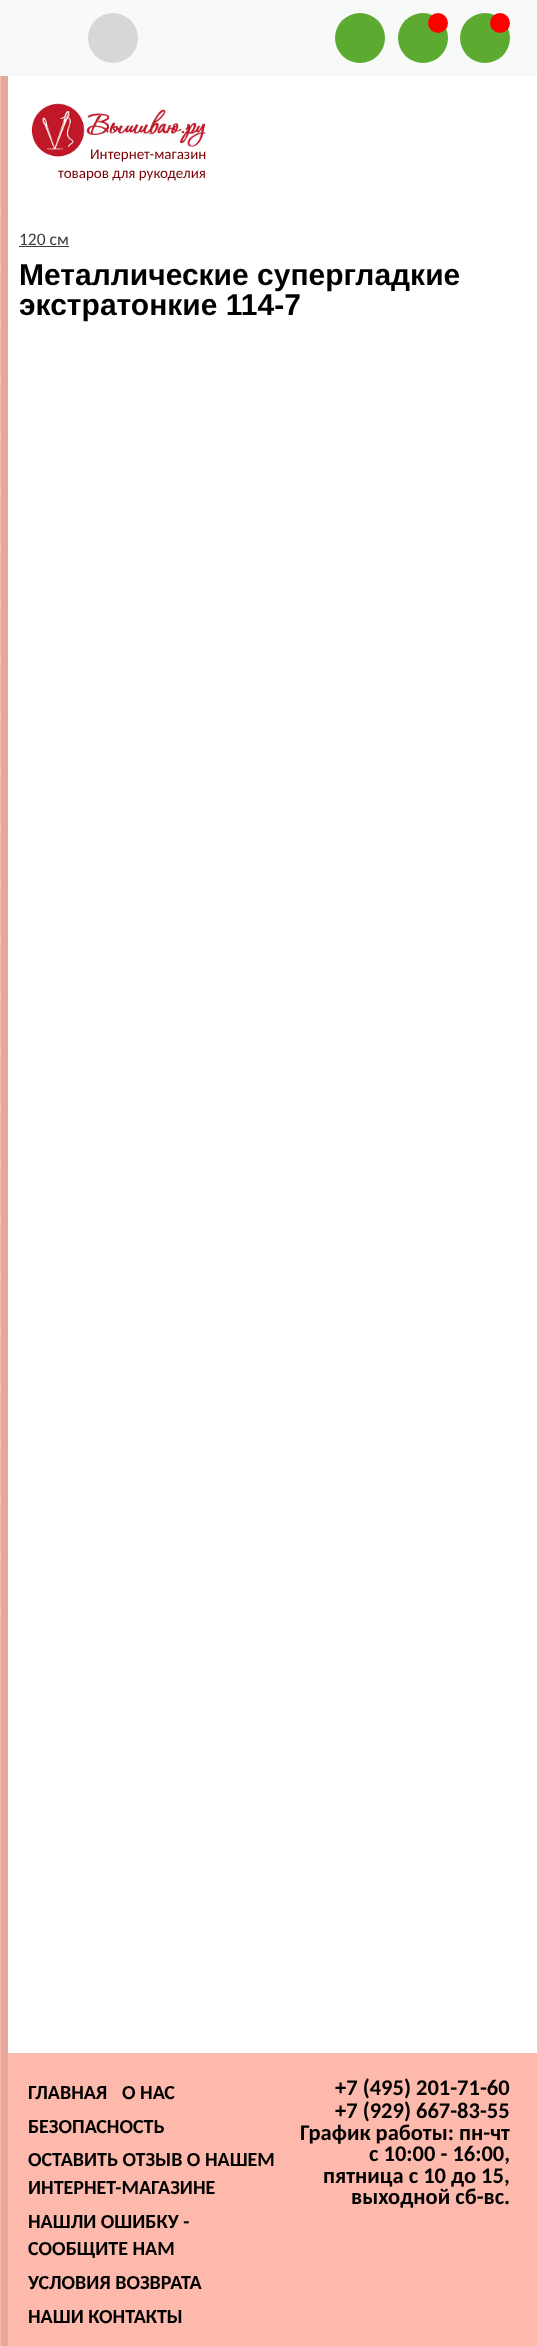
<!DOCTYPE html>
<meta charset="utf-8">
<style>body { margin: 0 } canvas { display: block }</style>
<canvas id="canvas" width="537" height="2346"></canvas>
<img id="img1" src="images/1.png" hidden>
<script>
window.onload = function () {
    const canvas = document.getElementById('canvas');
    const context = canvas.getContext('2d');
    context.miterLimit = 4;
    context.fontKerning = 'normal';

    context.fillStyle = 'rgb(255, 255, 255)';
    context.fillRect(0, 0, 537, 2346);
    context.fillStyle = 'rgb(253, 185, 171)';
    context.fillRect(0, 76, 1, 2270);
    context.fillStyle = 'rgb(228, 167, 154)';
    context.fillRect(1, 76, 7, 2270);
    context.fillStyle = 'rgb(254, 206, 196)';
    context.fillRect(0, 209, 1, 1);
    context.fillRect(0, 265, 1, 1);
    context.fillRect(0, 321, 1, 1);
    context.fillRect(0, 378, 1, 1);
    context.fillRect(0, 434, 1, 1);
    context.fillRect(0, 490, 1, 1);
    context.fillRect(0, 546, 1, 1);
    context.fillRect(0, 603, 1, 1);
    context.fillRect(0, 659, 1, 1);
    context.fillRect(0, 715, 1, 1);
    context.fillRect(0, 771, 1, 1);
    context.fillRect(0, 828, 1, 1);
    context.fillRect(0, 884, 1, 1);
    context.fillRect(0, 940, 1, 1);
    context.fillRect(0, 996, 1, 1);
    context.fillRect(0, 1053, 1, 1);
    context.fillRect(0, 1109, 1, 1);
    context.fillRect(0, 1165, 1, 1);
    context.fillRect(0, 1221, 1, 1);
    context.fillRect(0, 1278, 1, 1);
    context.fillRect(0, 1334, 1, 1);
    context.fillRect(0, 1390, 1, 1);
    context.fillRect(0, 1446, 1, 1);
    context.fillRect(0, 1503, 1, 1);
    context.fillRect(0, 1559, 1, 1);
    context.fillRect(0, 1615, 1, 1);
    context.fillStyle = 'rgb(248, 249, 249)';
    context.fillRect(0, 0, 537, 76);
    context.fillStyle = 'rgb(216, 214, 214)';
    context.beginPath();
    context.arc(113, 38, 25, 0, 2 * Math.PI);
    context.fill();
    context.fillStyle = 'rgb(92, 171, 48)';
    context.beginPath();
    context.arc(360, 38, 25, 0, 2 * Math.PI);
    context.fill();
    context.beginPath();
    context.arc(423, 38, 25, 0, 2 * Math.PI);
    context.fill();
    context.fillStyle = 'rgb(255, 0, 0)';
    context.beginPath();
    context.arc(438, 23, 10, 0, 2 * Math.PI);
    context.fill();
    context.fillStyle = 'rgb(92, 171, 48)';
    context.beginPath();
    context.arc(485, 38, 25, 0, 2 * Math.PI);
    context.fill();
    context.fillStyle = 'rgb(255, 0, 0)';
    context.beginPath();
    context.arc(500, 23, 10, 0, 2 * Math.PI);
    context.fill();
    context.drawImage(document.getElementById('img1'), 31, 103, 175, 54);
    context.fillStyle = 'rgb(59, 59, 59)';
    context.fillRect(19, 246, 50, 1);
    context.fillStyle = 'rgb(253, 185, 171)';
    context.fillRect(8, 2053, 529, 293);
    context.font = '15px Carlito';
    context.fillStyle = 'rgb(122, 0, 5)';
    context.fillText('Интернет-магазин', 90, 159);
    context.fillText('товаров для рукоделия', 58, 178);
    context.font = '17.5px Carlito';
    context.fillStyle = 'rgb(59, 59, 59)';
    context.fillText('120 см', 19, 245);
    context.font = 'bold 30px Liberation Sans';
    context.fillStyle = 'rgb(0, 0, 0)';
    context.fillText('Металлические супергладкие', 19, 285);
    context.fillText('экстратонкие 114-7', 19, 315);
    context.font = 'bold 20px Carlito';
    context.fillText('ГЛАВНАЯ', 28, 2099);
    context.fillText('О НАС', 122, 2099);
    context.fillText('БЕЗОПАСНОСТЬ', 28, 2133);
    context.fillText('ОСТАВИТЬ ОТЗЫВ О НАШЕМ', 28, 2166);
    context.fillText('ИНТЕРНЕТ-МАГАЗИНЕ', 28, 2194);
    context.fillText('НАШЛИ ОШИБКУ -', 28, 2228);
    context.fillText('СООБЩИТЕ НАМ', 28, 2255);
    context.fillText('УСЛОВИЯ ВОЗВРАТА', 28, 2289);
    context.fillText('НАШИ КОНТАКТЫ', 28, 2323);
    context.font = 'bold 22.5px Carlito';
    context.fillText('+7 (495) 201-71-60', 335, 2095);
    context.fillText('+7 (929) 667-83-55', 335, 2118);
    context.fillText('График работы: пн-чт', 300, 2140);
    context.fillText('с 10:00 - 16:00,', 369, 2161);
    context.fillText('пятница с 10 до 15,', 323, 2183);
    context.fillText('выходной сб-вс.', 351, 2204);
};
</script>
